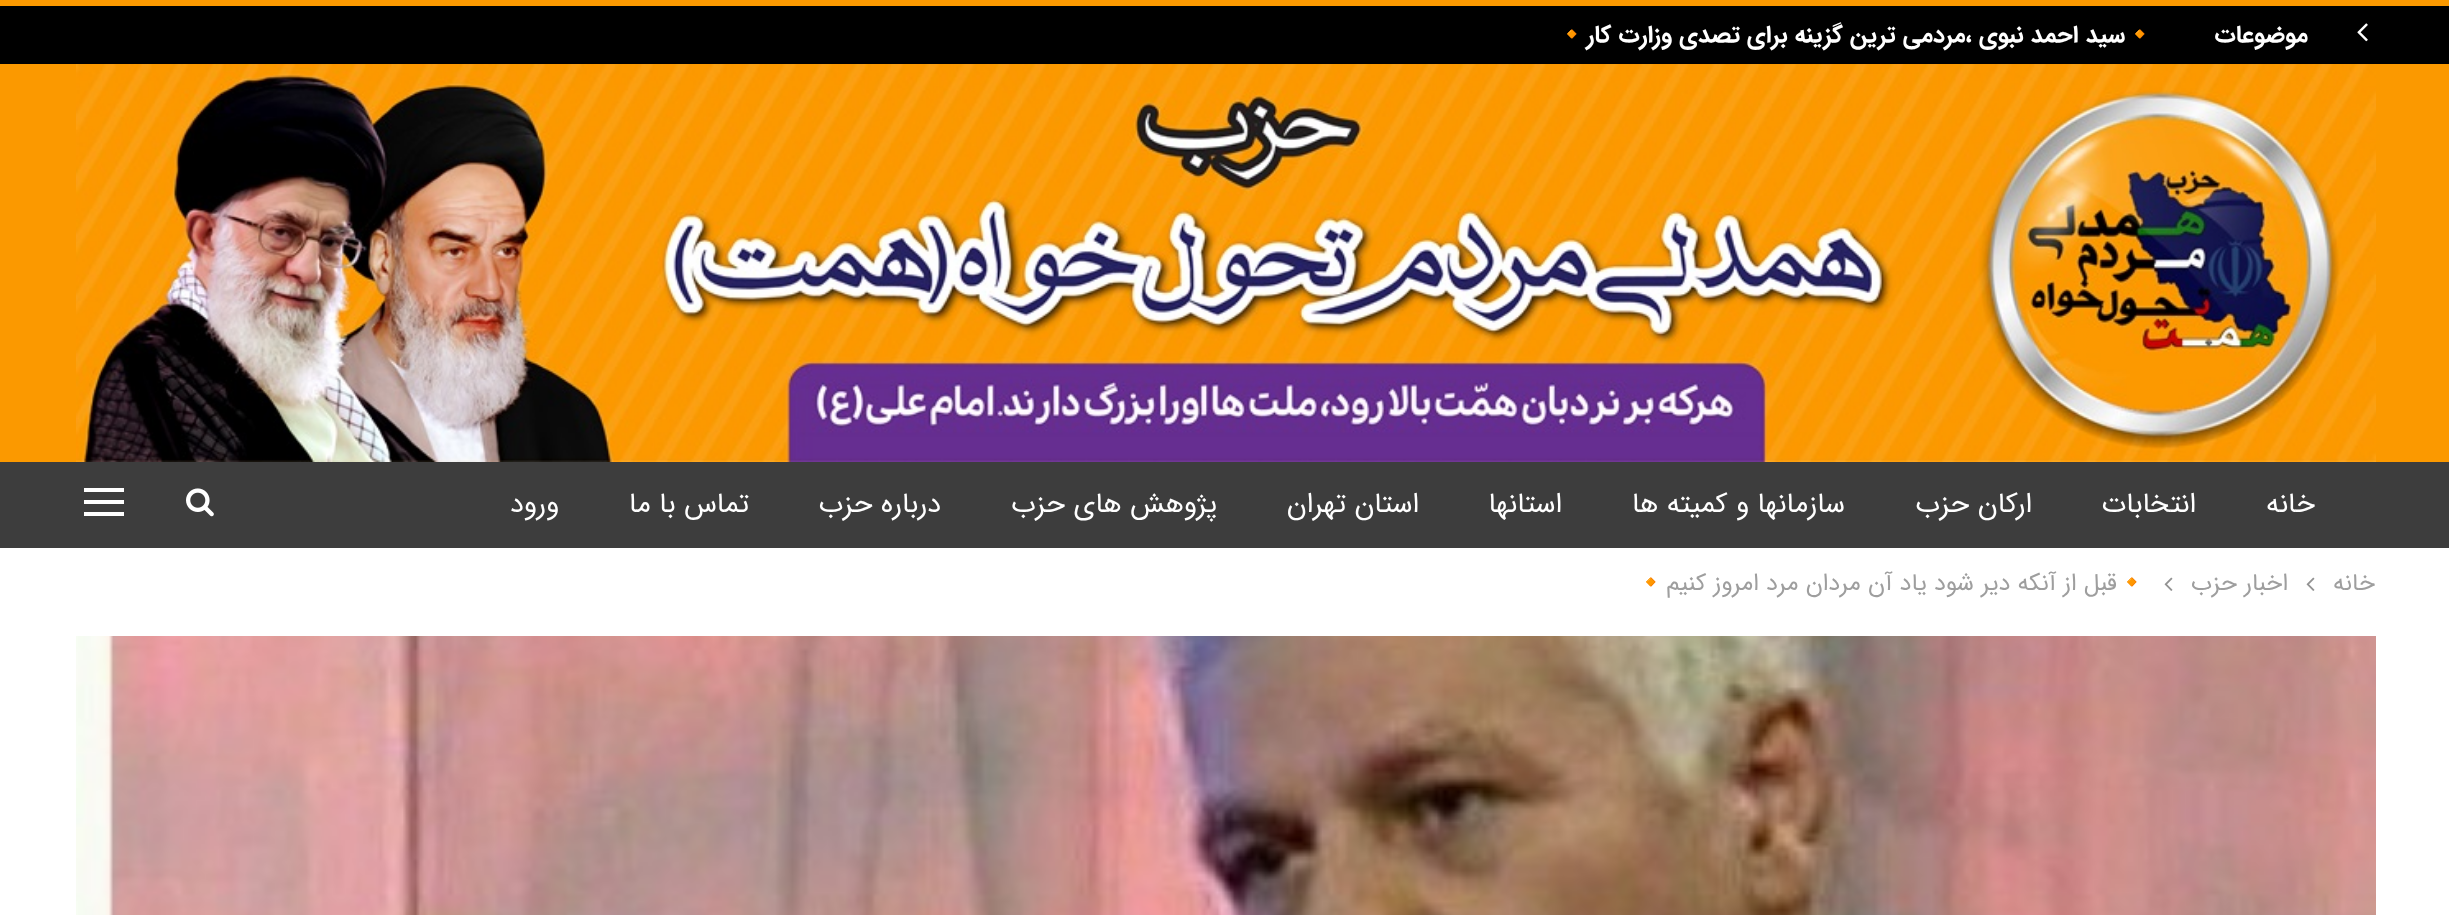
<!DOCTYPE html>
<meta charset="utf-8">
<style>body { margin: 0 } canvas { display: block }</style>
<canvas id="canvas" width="2449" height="915"></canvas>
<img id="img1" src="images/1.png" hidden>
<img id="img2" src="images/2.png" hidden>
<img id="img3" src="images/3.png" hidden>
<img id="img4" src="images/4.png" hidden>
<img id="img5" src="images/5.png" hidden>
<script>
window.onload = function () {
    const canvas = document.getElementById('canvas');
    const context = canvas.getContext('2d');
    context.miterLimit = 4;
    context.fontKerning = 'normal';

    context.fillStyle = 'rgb(255, 255, 255)';
    context.fillRect(0, 0, 2449, 915);
    context.fillStyle = 'rgb(251, 153, 0)';
    context.fillRect(0, 0, 2449, 6);
    context.fillRect(0, 64, 2449, 398);
    context.fillStyle = 'rgb(0, 0, 0)';
    context.fillRect(0, 6, 2449, 58);
    context.drawImage(document.getElementById('img1'), 2357, 23, 11, 19);
    context.drawImage(document.getElementById('img2'), 76, 64, 2300, 398);
    context.fillStyle = 'rgb(61, 61, 61)';
    context.fillRect(0, 462, 2449, 86);
    context.drawImage(document.getElementById('img3'), 186, 488, 28, 29);
    context.fillStyle = 'rgb(255, 255, 255)';
    context.fillRect(84, 500, 40, 4);
    context.fillRect(84, 488, 40, 4);
    context.fillRect(84, 512, 40, 4);
    context.drawImage(document.getElementById('img4'), 2306, 577, 9, 14);
    context.drawImage(document.getElementById('img4'), 2164, 577, 9, 14);
    context.drawImage(document.getElementById('img5'), 76, 636, 2300, 279);
    context.direction = 'rtl';
    context.font = 'bold 24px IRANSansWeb';
    context.fillText('موضوعات', 2308, 42);
    context.font = '24px Noto Color Emoji';
    context.fillText('🔸', 2155, 42);
    context.fillText('🔸', 1587, 42);
    context.font = 'bold 24px IRANSansWeb';
    context.fillText('سید احمد نبوی ،مردمی ترین گزینه برای تصدی وزارت کار', 2125, 42);
    context.font = '28px IRANSansWeb';
    context.fillText('خانه', 2315, 512);
    context.fillText('انتخابات', 2196, 512);
    context.fillText('ارکان حزب', 2032, 512);
    context.fillText('سازمانها و کمیته ها', 1845, 512);
    context.fillText('استانها', 1562, 512);
    context.fillText('استان تهران', 1419, 512);
    context.fillText('پژوهش های حزب', 1217, 512);
    context.fillText('درباره حزب', 941, 512);
    context.fillText('تماس با ما', 749, 512);
    context.fillText('ورود', 559, 512);
    context.font = '24px IRANSansWeb';
    context.fillStyle = 'rgb(158, 158, 158)';
    context.fillText('خانه', 2375, 590);
    context.fillText('اخبار حزب', 2288, 590);
    context.font = '24px Noto Color Emoji';
    context.fillText('🔸', 2147, 590);
    context.font = '24px IRANSansWeb';
    context.fillText('قبل از آنکه دیر شود یاد آن مردان مرد امروز کنیم', 2117, 590);
    context.font = '24px Noto Color Emoji';
    context.fillText('🔸', 1666, 590);
};
</script>
